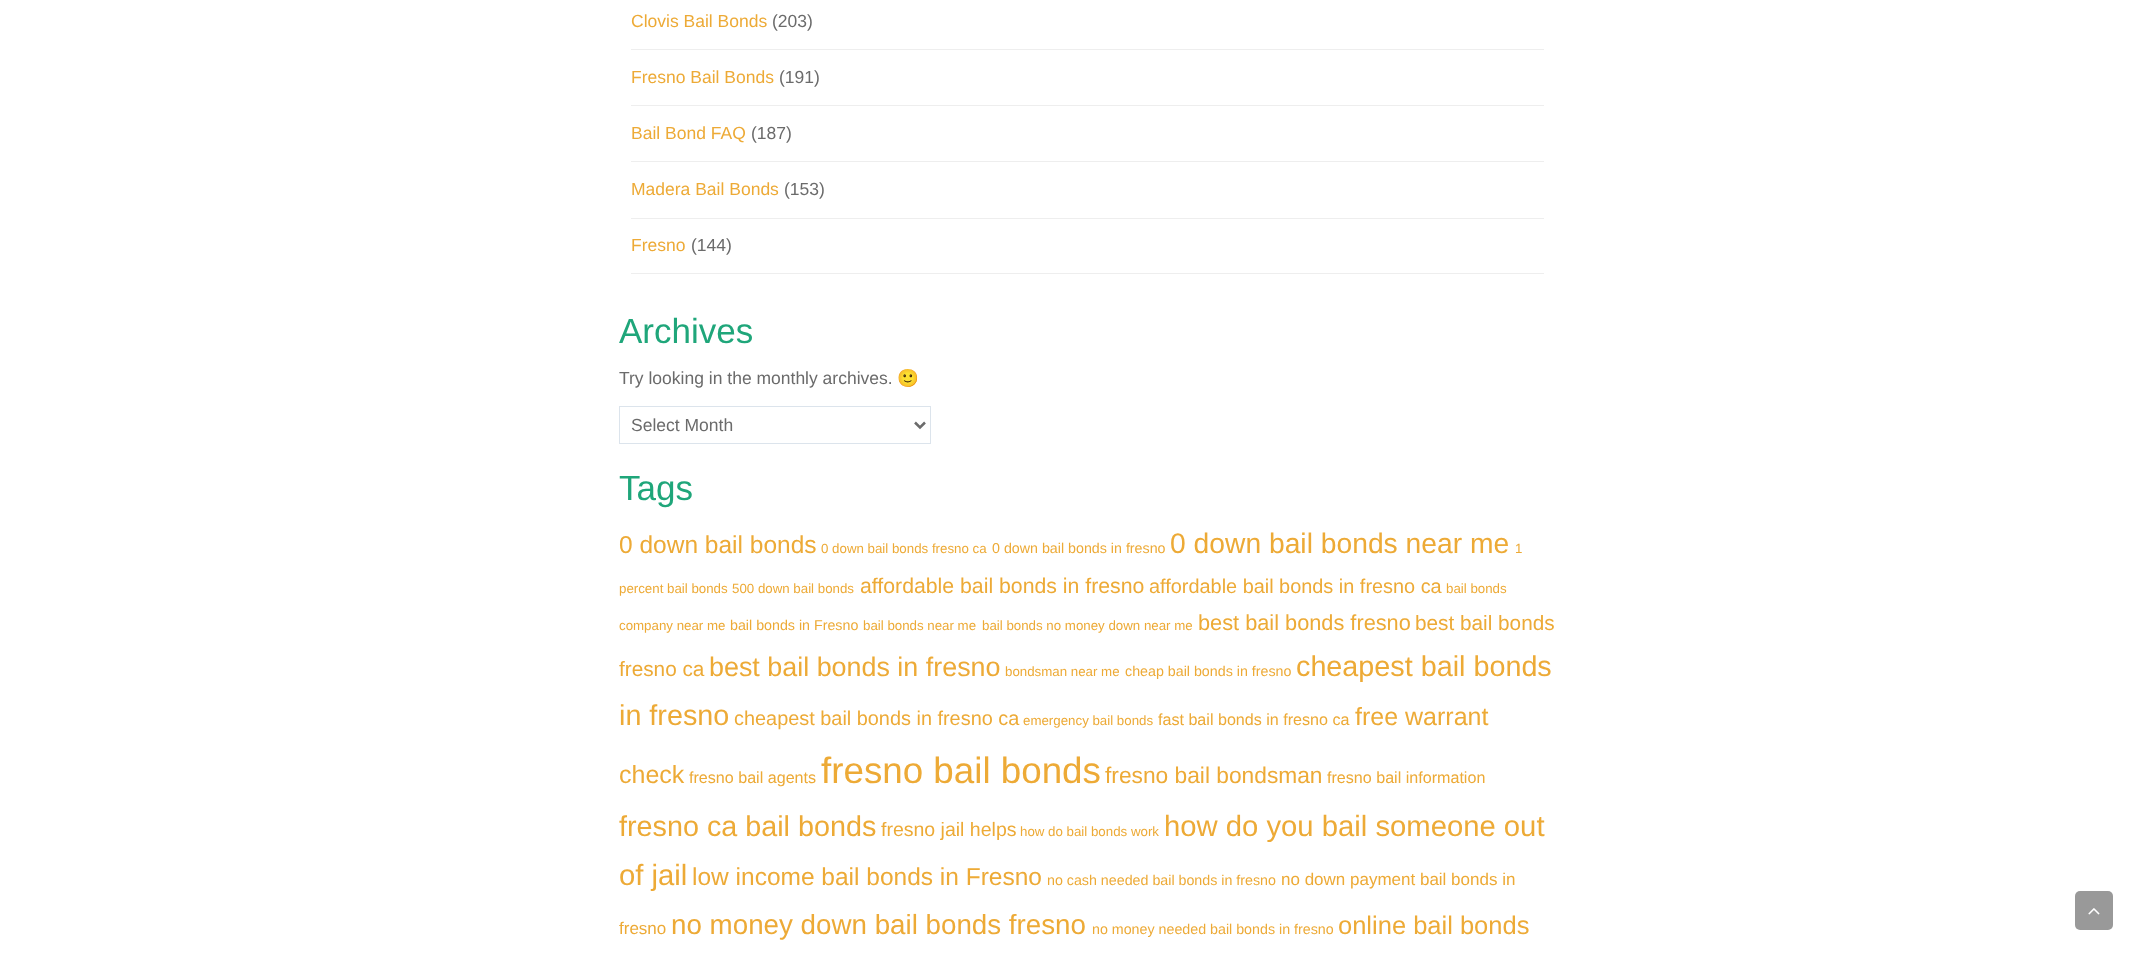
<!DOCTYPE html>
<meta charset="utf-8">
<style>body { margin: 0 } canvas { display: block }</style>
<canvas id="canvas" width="2137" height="968"></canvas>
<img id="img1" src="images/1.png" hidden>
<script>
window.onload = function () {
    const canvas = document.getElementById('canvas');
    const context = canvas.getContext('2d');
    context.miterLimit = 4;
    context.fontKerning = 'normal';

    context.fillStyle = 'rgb(255, 255, 255)';
    context.fillRect(0, 0, 2137, 968);
    context.fillStyle = 'rgb(238, 238, 238)';
    context.fillRect(631, 49, 913, 1);
    context.fillRect(631, 105, 913, 1);
    context.fillRect(631, 161, 913, 1);
    context.fillRect(631, 218, 913, 1);
    context.fillRect(631, 273, 913, 1);
    context.strokeStyle = 'rgb(220, 228, 236)';
    context.strokeRect(619.5, 406.5, 311, 37);
    context.beginPath();
    context.moveTo(915, 422.5);
    context.lineTo(920, 427.5);
    context.lineTo(925, 422.5);
    context.strokeStyle = 'rgb(107, 107, 107)';
    context.lineWidth = 2.5;
    context.stroke();
    context.fillStyle = 'rgb(153, 153, 153)';
    context.beginPath();
    context.roundRect(2075, 891, 38, 39, 5);
    context.fill();
    context.drawImage(document.getElementById('img1'), 2088, 908, 12, 7);
    context.font = '17.5px Liberation Sans';
    context.fillStyle = 'rgb(237, 170, 54)';
    context.fillText('Clovis Bail Bonds', 631, 27);
    context.fillStyle = 'rgb(107, 107, 107)';
    context.fillText('(203)', 772, 27);
    context.fillStyle = 'rgb(237, 170, 54)';
    context.fillText('Fresno Bail Bonds', 631, 83);
    context.fillStyle = 'rgb(107, 107, 107)';
    context.fillText('(191)', 779, 83);
    context.fillStyle = 'rgb(237, 170, 54)';
    context.fillText('Bail Bond FAQ', 631, 139);
    context.fillStyle = 'rgb(107, 107, 107)';
    context.fillText('(187)', 751, 139);
    context.fillStyle = 'rgb(237, 170, 54)';
    context.fillText('Madera Bail Bonds', 631, 195);
    context.fillStyle = 'rgb(107, 107, 107)';
    context.fillText('(153)', 784, 195);
    context.fillStyle = 'rgb(237, 170, 54)';
    context.fillText('Fresno', 631, 251);
    context.fillStyle = 'rgb(107, 107, 107)';
    context.fillText('(144)', 691, 251);
    context.font = '35px Liberation Sans';
    context.fillStyle = 'rgb(31, 166, 122)';
    context.fillText('Archives', 619, 343);
    context.font = '17.5px Liberation Sans';
    context.fillStyle = 'rgb(107, 107, 107)';
    context.fillText('Try looking in the monthly archives.', 619, 384);
    context.font = '17.5px Noto Color Emoji';
    context.fillText('🙂', 897, 384);
    context.font = '17.5px Liberation Sans';
    context.fillText('Select Month', 631, 431);
    context.font = '35px Liberation Sans';
    context.fillStyle = 'rgb(31, 166, 122)';
    context.fillText('Tags', 619, 500);
    context.font = '24.5px Liberation Sans';
    context.fillStyle = 'rgb(237, 170, 54)';
    context.fillText('0 down bail bonds', 619, 553);
    context.font = '13.3px Liberation Sans';
    context.fillText('0 down bail bonds fresno ca', 821, 553);
    context.font = '14.25px Liberation Sans';
    context.fillText('0 down bail bonds in fresno', 992, 553);
    context.font = '28.25px Liberation Sans';
    context.fillText('0 down bail bonds near me', 1170, 553);
    context.font = '13.3px Liberation Sans';
    context.fillText('1', 1515, 553);
    context.fillText('percent bail bonds', 619, 593);
    context.fillText('500 down bail bonds', 732, 593);
    context.font = '21.25px Liberation Sans';
    context.fillText('affordable bail bonds in fresno', 860, 593);
    context.font = '19.9px Liberation Sans';
    context.fillText('affordable bail bonds in fresno ca', 1149, 593);
    context.font = '13.3px Liberation Sans';
    context.fillText('bail bonds', 1446, 593);
    context.fillText('company near me', 619, 630);
    context.font = '14.25px Liberation Sans';
    context.fillText('bail bonds in Fresno', 730, 630);
    context.font = '13.3px Liberation Sans';
    context.fillText('bail bonds near me', 863, 630);
    context.fillText('bail bonds no money down near me', 982, 630);
    context.font = '21.75px Liberation Sans';
    context.fillText('best bail bonds fresno', 1198, 630);
    context.font = '20.75px Liberation Sans';
    context.fillText('best bail bonds', 1415, 630);
    context.fillText('fresno ca', 619, 676);
    context.font = '26.9px Liberation Sans';
    context.fillText('best bail bonds in fresno', 709, 676);
    context.font = '13.3px Liberation Sans';
    context.fillText('bondsman near me', 1005, 676);
    context.font = '14.25px Liberation Sans';
    context.fillText('cheap bail bonds in fresno', 1125, 676);
    context.font = '28.75px Liberation Sans';
    context.fillText('cheapest bail bonds', 1296, 676);
    context.fillText('in fresno', 619, 725);
    context.font = '19.9px Liberation Sans';
    context.fillText('cheapest bail bonds in fresno ca', 734, 725);
    context.font = '13.3px Liberation Sans';
    context.fillText('emergency bail bonds', 1023, 725);
    context.font = '16.1px Liberation Sans';
    context.fillText('fast bail bonds in fresno ca', 1158, 725);
    context.font = '25px Liberation Sans';
    context.fillText('free warrant', 1355, 725);
    context.fillText('check', 619, 783);
    context.font = '16.1px Liberation Sans';
    context.fillText('fresno bail agents', 689, 783);
    context.font = '36.75px Liberation Sans';
    context.fillText('fresno bail bonds', 821, 783);
    context.font = '22.75px Liberation Sans';
    context.fillText('fresno bail bondsman', 1105, 783);
    context.font = '16.1px Liberation Sans';
    context.fillText('fresno bail information', 1327, 783);
    context.font = '28.75px Liberation Sans';
    context.fillText('fresno ca bail bonds', 619, 836);
    context.font = '19.5px Liberation Sans';
    context.fillText('fresno jail helps', 881, 836);
    context.font = '13.3px Liberation Sans';
    context.fillText('how do bail bonds work', 1020, 836);
    context.font = '29.25px Liberation Sans';
    context.fillText('how do you bail someone out', 1164, 836);
    context.fillText('of jail', 619, 885);
    context.font = '24.5px Liberation Sans';
    context.fillText('low income bail bonds in Fresno', 692, 885);
    context.font = '14.25px Liberation Sans';
    context.fillText('no cash needed bail bonds in fresno', 1047, 885);
    context.font = '17px Liberation Sans';
    context.fillText('no down payment bail bonds in', 1281, 885);
    context.fillText('fresno', 619, 934);
    context.font = '27.75px Liberation Sans';
    context.fillText('no money down bail bonds fresno', 671, 934);
    context.font = '14.25px Liberation Sans';
    context.fillText('no money needed bail bonds in fresno', 1092, 934);
    context.font = '25.5px Liberation Sans';
    context.fillText('online bail bonds', 1338, 934);
};
</script>
